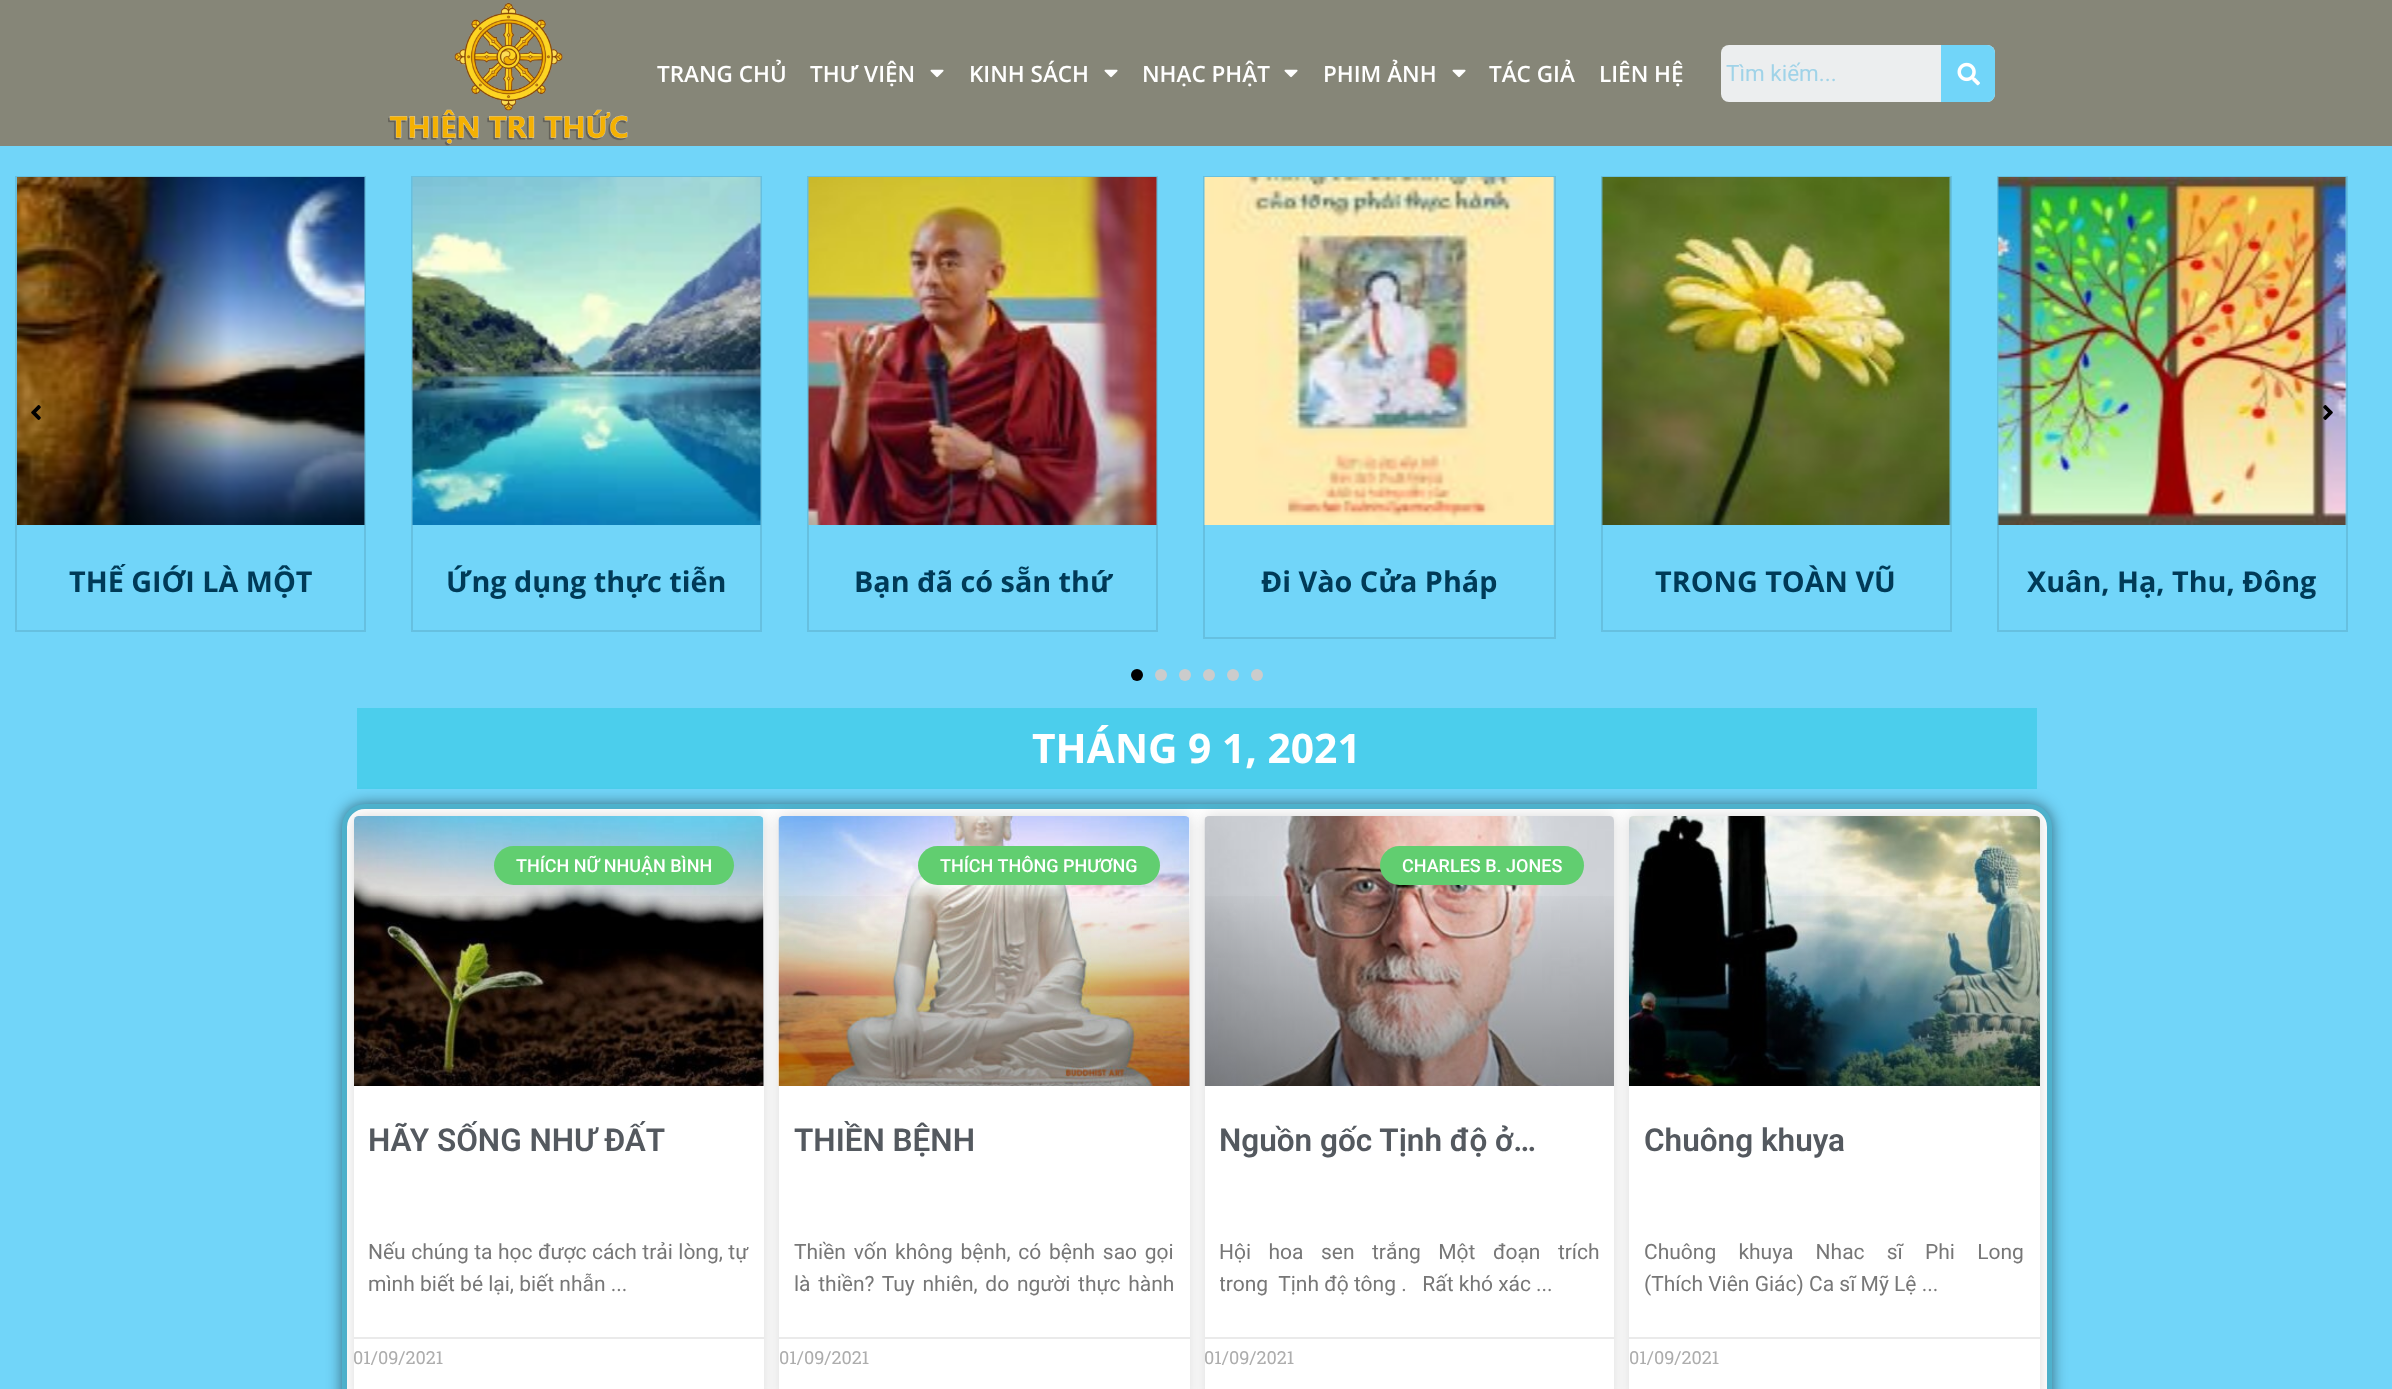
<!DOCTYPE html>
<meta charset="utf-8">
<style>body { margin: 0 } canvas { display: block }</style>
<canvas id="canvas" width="2392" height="1389"></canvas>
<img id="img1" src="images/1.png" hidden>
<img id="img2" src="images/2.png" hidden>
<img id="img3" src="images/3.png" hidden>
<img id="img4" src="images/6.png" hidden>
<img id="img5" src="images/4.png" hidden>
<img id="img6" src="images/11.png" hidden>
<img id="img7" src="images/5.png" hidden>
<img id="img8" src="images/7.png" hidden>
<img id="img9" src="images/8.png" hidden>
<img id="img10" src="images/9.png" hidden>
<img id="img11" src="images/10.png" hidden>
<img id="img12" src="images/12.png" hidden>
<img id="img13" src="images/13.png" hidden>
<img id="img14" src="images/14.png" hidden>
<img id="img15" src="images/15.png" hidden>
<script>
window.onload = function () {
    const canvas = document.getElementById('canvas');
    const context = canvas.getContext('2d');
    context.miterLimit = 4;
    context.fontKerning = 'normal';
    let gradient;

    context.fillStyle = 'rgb(113, 213, 249)';
    context.fillRect(0, 0, 2392, 1389);
    context.fillStyle = 'rgb(134, 134, 120)';
    context.fillRect(0, 0, 2392, 146);
    context.drawImage(document.getElementById('img1'), 388, 2, 240, 144);
    context.drawImage(document.getElementById('img2'), 930, 69, 14, 9);
    context.drawImage(document.getElementById('img2'), 1104, 69, 14, 9);
    context.drawImage(document.getElementById('img2'), 1284, 69, 14, 9);
    context.drawImage(document.getElementById('img2'), 1452, 69, 14, 9);
    context.fillStyle = 'rgb(236, 238, 239)';
    context.beginPath();
    context.roundRect(1721, 45, 274, 57, 8);
    context.fill();
    context.fillStyle = 'rgb(113, 213, 249)';
    context.beginPath();
    context.roundRect(1941, 45, 54, 57, [0, 8, 8, 0]);
    context.fill();
    context.drawImage(document.getElementById('img3'), 1957, 62, 23, 24);
    context.strokeStyle = 'rgb(102, 192, 224)';
    context.lineWidth = 2;
    context.strokeRect(16, 177, 349, 454);
    context.drawImage(document.getElementById('img4'), 17, 177, 348, 348);
    context.drawImage(document.getElementById('img5'), 31, 405, 10, 15);
    context.strokeRect(1998, 177, 349, 454);
    context.drawImage(document.getElementById('img6'), 1997, 177, 350, 348);
    context.drawImage(document.getElementById('img7'), 2323, 405, 10, 15);
    context.strokeRect(412, 177, 349, 454);
    context.drawImage(document.getElementById('img8'), 412, 177, 349, 348);
    context.strokeRect(808, 177, 349, 454);
    context.drawImage(document.getElementById('img9'), 808, 177, 349, 348);
    context.strokeRect(1204, 177, 351, 461);
    context.drawImage(document.getElementById('img10'), 1204, 177, 351, 348);
    context.strokeRect(1602, 177, 349, 454);
    context.drawImage(document.getElementById('img11'), 1601, 177, 350, 348);
    context.fillStyle = 'rgb(0, 0, 0)';
    context.beginPath();
    context.arc(1137, 675, 6, 0, 2 * Math.PI);
    context.fill();
    context.fillStyle = 'rgb(204, 204, 204)';
    context.beginPath();
    context.arc(1161, 675, 6, 0, 2 * Math.PI);
    context.fill();
    context.beginPath();
    context.arc(1185, 675, 6, 0, 2 * Math.PI);
    context.fill();
    context.beginPath();
    context.arc(1209, 675, 6, 0, 2 * Math.PI);
    context.fill();
    context.beginPath();
    context.arc(1233, 675, 6, 0, 2 * Math.PI);
    context.fill();
    context.beginPath();
    context.arc(1257, 675, 6, 0, 2 * Math.PI);
    context.fill();
    context.fillStyle = 'rgb(75, 206, 236)';
    context.fillRect(357, 708, 1680, 81);
    context.fillStyle = 'rgba(0, 0, 0, 0.5)';
    context.filter = 'blur(7.5px)';
    context.beginPath();
    context.roundRect(342, 804, 1710, 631, 23);
    context.fill();
    context.filter = 'none';
    context.fillStyle = 'rgb(255, 255, 255)';
    context.beginPath();
    context.roundRect(344.5, 806.5, 1705, 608, 20.5);
    context.fill();
    context.strokeStyle = 'rgb(79, 180, 207)';
    context.lineWidth = 5;
    context.stroke();
    context.fillStyle = 'rgba(0, 0, 0, 0.15)';
    context.filter = 'blur(7.5px)';
    context.beginPath();
    context.roundRect(354, 816, 410, 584, 5);
    context.fill();
    context.filter = 'none';
    context.fillStyle = 'rgb(255, 255, 255)';
    context.beginPath();
    context.roundRect(354, 816, 410, 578, 5);
    context.fill();
    context.drawImage(document.getElementById('img12'), 354, 816, 410, 270);
    gradient = context.createLinearGradient(559, 1086, 559, 816);
    gradient.addColorStop(0, 'rgba(0, 0, 0, 0.35)');
    gradient.addColorStop(0.75, 'rgba(0, 0, 0, 0)');
    context.fillStyle = gradient;
    context.fillRect(354, 896, 410, 190);
    context.fillStyle = 'rgb(97, 206, 112)';
    context.beginPath();
    context.roundRect(494, 846, 240, 39, 19.5);
    context.fill();
    context.fillStyle = 'rgb(234, 234, 234)';
    context.fillRect(354, 1337, 410, 2);
    context.fillStyle = 'rgba(0, 0, 0, 0.15)';
    context.filter = 'blur(7.5px)';
    context.beginPath();
    context.roundRect(779, 816, 411, 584, 5);
    context.fill();
    context.filter = 'none';
    context.fillStyle = 'rgb(255, 255, 255)';
    context.beginPath();
    context.roundRect(779, 816, 411, 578, 5);
    context.fill();
    context.drawImage(document.getElementById('img13'), 778, 816, 412, 270);
    gradient = context.createLinearGradient(984, 1086, 984, 816);
    gradient.addColorStop(0, 'rgba(0, 0, 0, 0.35)');
    gradient.addColorStop(0.75, 'rgba(0, 0, 0, 0)');
    context.fillStyle = gradient;
    context.fillRect(779, 896, 411, 190);
    context.fillStyle = 'rgb(97, 206, 112)';
    context.beginPath();
    context.roundRect(918, 846, 242, 39, 19.5);
    context.fill();
    context.fillStyle = 'rgb(234, 234, 234)';
    context.fillRect(779, 1337, 411, 2);
    context.fillStyle = 'rgba(0, 0, 0, 0.15)';
    context.filter = 'blur(7.5px)';
    context.beginPath();
    context.roundRect(1205, 816, 409, 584, 5);
    context.fill();
    context.filter = 'none';
    context.fillStyle = 'rgb(255, 255, 255)';
    context.beginPath();
    context.roundRect(1205, 816, 409, 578, 5);
    context.fill();
    context.drawImage(document.getElementById('img14'), 1204, 816, 410, 270);
    gradient = context.createLinearGradient(1409, 1086, 1409, 816);
    gradient.addColorStop(0, 'rgba(0, 0, 0, 0.35)');
    gradient.addColorStop(0.75, 'rgba(0, 0, 0, 0)');
    context.fillStyle = gradient;
    context.fillRect(1205, 896, 409, 190);
    context.fillStyle = 'rgb(97, 206, 112)';
    context.beginPath();
    context.roundRect(1380, 846, 204, 39, 19.5);
    context.fill();
    context.fillStyle = 'rgb(234, 234, 234)';
    context.fillRect(1205, 1337, 409, 2);
    context.fillStyle = 'rgba(0, 0, 0, 0.15)';
    context.filter = 'blur(7.5px)';
    context.beginPath();
    context.roundRect(1629, 816, 411, 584, 5);
    context.fill();
    context.filter = 'none';
    context.fillStyle = 'rgb(255, 255, 255)';
    context.beginPath();
    context.roundRect(1629, 816, 411, 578, 5);
    context.fill();
    context.drawImage(document.getElementById('img15'), 1629, 816, 411, 270);
    gradient = context.createLinearGradient(1835, 1086, 1835, 816);
    gradient.addColorStop(0, 'rgba(0, 0, 0, 0.35)');
    gradient.addColorStop(0.75, 'rgba(0, 0, 0, 0)');
    context.fillStyle = gradient;
    context.fillRect(1629, 896, 411, 190);
    context.fillStyle = 'rgb(234, 234, 234)';
    context.fillRect(1629, 1337, 411, 2);
    context.font = '600 22.5px Open Sans';
    context.fillStyle = 'rgb(255, 255, 255)';
    context.fillText('TRANG CHỦ', 657, 82);
    context.fillText('THƯ VIỆN', 810, 82);
    context.fillText('KINH SÁCH', 969, 82);
    context.fillText('NHẠC PHẬT', 1142, 82);
    context.fillText('PHIM ẢNH', 1323, 82);
    context.fillText('TÁC GIẢ', 1489, 82);
    context.fillText('LIÊN HỆ', 1599, 82);
    context.font = '22.5px Roboto';
    context.fillStyle = 'rgb(160, 211, 232)';
    context.fillText('Tìm kiếm...', 1726, 81);
    context.font = 'bold 28.75px Open Sans';
    context.fillStyle = 'rgb(0, 58, 87)';
    context.fillText('THẾ GIỚI LÀ MỘT', 69, 592);
    context.fillText('Ứng dụng thực tiễn', 446, 592);
    context.fillText('Bạn đã có sẵn thứ', 854, 592);
    context.fillText('Đi Vào Cửa Pháp', 1261, 592);
    context.fillText('TRONG TOÀN VŨ', 1655, 592);
    context.fillText('Xuân, Hạ, Thu, Đông', 2027, 592);
    context.font = 'bold 40.75px Open Sans';
    context.fillStyle = 'rgb(255, 255, 255)';
    context.fillText('THÁNG 9 1, 2021', 1032, 763);
    context.font = '500 18px Roboto';
    context.fillText('THÍCH NỮ NHUẬN BÌNH', 516, 872);
    context.font = '600 31.5px Roboto';
    context.fillStyle = 'rgb(84, 89, 95)';
    context.fillText('HÃY SỐNG NHƯ ĐẤT', 368, 1151);
    context.wordSpacing = '0.25px';
    context.font = '21px Roboto';
    context.fillStyle = 'rgb(119, 119, 119)';
    context.fillText('Nếu chúng ta học được cách trải lòng, tự', 368, 1259);
    context.wordSpacing = '0px';
    context.fillText('mình biết bé lại, biết nhẫn ...', 368, 1291);
    context.font = '18px Roboto Slab';
    context.fillStyle = 'rgb(173, 173, 173)';
    context.fillText('01/09/2021', 353, 1364);
    context.font = '500 18px Roboto';
    context.fillStyle = 'rgb(255, 255, 255)';
    context.fillText('THÍCH THÔNG PHƯƠNG', 940, 872);
    context.font = '600 31.5px Roboto';
    context.fillStyle = 'rgb(84, 89, 95)';
    context.fillText('THIỀN BỆNH', 794, 1151);
    context.wordSpacing = '2.5px';
    context.font = '21px Roboto';
    context.fillStyle = 'rgb(119, 119, 119)';
    context.fillText('Thiền vốn không bệnh, có bệnh sao gọi', 794, 1259);
    context.fillText('là thiền? Tuy nhiên, do người thực hành', 794, 1291);
    context.wordSpacing = '0px';
    context.font = '18px Roboto Slab';
    context.fillStyle = 'rgb(173, 173, 173)';
    context.fillText('01/09/2021', 779, 1364);
    context.font = '500 18px Roboto';
    context.fillStyle = 'rgb(255, 255, 255)';
    context.fillText('CHARLES B. JONES', 1402, 872);
    context.font = '600 31.5px Roboto';
    context.fillStyle = 'rgb(84, 89, 95)';
    context.fillText('Nguồn gốc Tịnh độ ở…', 1219, 1151);
    context.wordSpacing = '12.25px';
    context.font = '21px Roboto';
    context.fillStyle = 'rgb(119, 119, 119)';
    context.fillText('Hội hoa sen trắng Một đoạn trích', 1219, 1259);
    context.save();
    context.beginPath();
    context.rect(1220, 1236, 379, 63);
    context.clip();
    context.wordSpacing = '0px';
    context.fillText('trong  Tịnh độ tông .   Rất khó xác', 1219, 1291);
    context.restore();
    context.wordSpacing = '0px';
    context.fillText('...', 1536, 1291);
    context.save();
    context.beginPath();
    context.roundRect(1205, 816, 409, 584, 5);
    context.clip();
    context.font = '18px Roboto Slab';
    context.fillStyle = 'rgb(173, 173, 173)';
    context.fillText('01/09/2021', 1204, 1364);
    context.restore();
    context.font = '600 31.5px Roboto';
    context.fillStyle = 'rgb(84, 89, 95)';
    context.fillText('Chuông khuya', 1644, 1151);
    context.wordSpacing = '17px';
    context.font = '21px Roboto';
    context.fillStyle = 'rgb(119, 119, 119)';
    context.fillText('Chuông khuya Nhac sĩ Phi Long', 1644, 1259);
    context.wordSpacing = '0px';
    context.fillText('(Thích Viên Giác) Ca sĩ Mỹ Lệ ...', 1644, 1291);
    context.font = '18px Roboto Slab';
    context.fillStyle = 'rgb(173, 173, 173)';
    context.fillText('01/09/2021', 1629, 1364);
};
</script>
